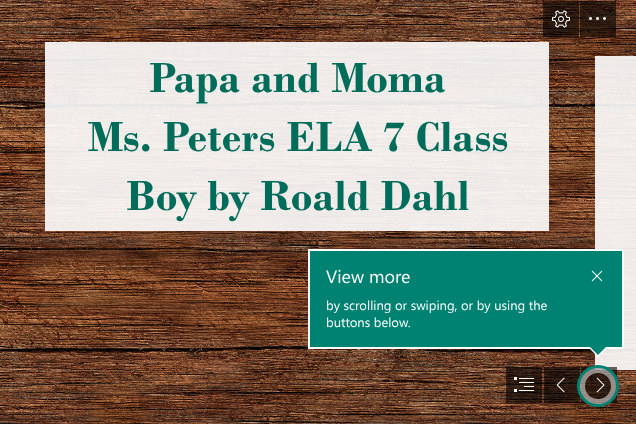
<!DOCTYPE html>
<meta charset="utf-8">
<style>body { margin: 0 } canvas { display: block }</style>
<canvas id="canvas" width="636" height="424"></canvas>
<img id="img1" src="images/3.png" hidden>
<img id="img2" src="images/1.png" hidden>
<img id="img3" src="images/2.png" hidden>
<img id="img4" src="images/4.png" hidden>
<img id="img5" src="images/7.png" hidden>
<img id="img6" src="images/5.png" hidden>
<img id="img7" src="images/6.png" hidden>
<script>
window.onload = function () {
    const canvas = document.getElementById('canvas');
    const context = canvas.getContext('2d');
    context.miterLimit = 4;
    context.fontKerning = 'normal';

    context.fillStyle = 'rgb(255, 255, 255)';
    context.fillRect(0, 0, 636, 424);
    context.drawImage(document.getElementById('img1'), 0, 0, 636, 424);
    context.fillStyle = 'rgba(0, 0, 0, 0.6)';
    context.fillRect(543, 1, 36, 36);
    context.drawImage(document.getElementById('img2'), 552, 10, 18, 18);
    context.fillRect(580, 1, 36, 36);
    context.drawImage(document.getElementById('img3'), 589, 17, 17, 3);
    context.fillStyle = 'rgba(255, 255, 255, 0.9)';
    context.fillRect(45, 42, 504, 189);
    context.fillRect(595, 56, 41, 314);
    context.fillStyle = 'rgb(0, 130, 114)';
    context.beginPath();
    context.rect(309, 250, 314, 98);
    context.fill();
    context.strokeStyle = 'rgb(255, 255, 255)';
    context.lineWidth = 2;
    context.stroke();
    context.drawImage(document.getElementById('img4'), 591, 270, 12, 12);
    context.fillStyle = 'rgb(255, 255, 255)';
    context.beginPath();
    context.moveTo(588, 347);
    context.lineTo(608, 347);
    context.lineTo(598, 357);
    context.closePath();
    context.fill();
    context.fillStyle = 'rgb(0, 130, 114)';
    context.beginPath();
    context.moveTo(590, 347);
    context.lineTo(606, 347);
    context.lineTo(598, 355);
    context.closePath();
    context.fill();
    context.fillStyle = 'rgba(0, 0, 0, 0.6)';
    context.fillRect(544, 367, 36, 36);
    context.fillRect(581, 367, 36, 36);
    context.drawImage(document.getElementById('img5'), 596, 377, 9, 16);
    context.beginPath();
    context.arc(598, 386, 16.5, 0, 2 * Math.PI);
    context.strokeStyle = 'rgba(255, 255, 255, 0.5)';
    context.lineWidth = 7;
    context.stroke();
    context.beginPath();
    context.arc(598, 386, 19.5, 0, 2 * Math.PI);
    context.strokeStyle = 'rgb(0, 130, 114)';
    context.lineWidth = 3;
    context.stroke();
    context.fillRect(506, 367, 36, 36);
    context.drawImage(document.getElementById('img6'), 514, 377, 20, 15);
    context.drawImage(document.getElementById('img7'), 556, 377, 9, 16);
    context.font = 'bold 44.25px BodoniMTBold';
    context.fillStyle = 'rgb(0, 108, 89)';
    context.fillText('Papa and Moma', 149, 92);
    context.fillText('Ms. Peters ELA 7 Class', 87, 151);
    context.fillText('Boy by Roald Dahl', 126, 210);
    context.font = '18px Segoe UI';
    context.fillStyle = 'rgb(255, 255, 255)';
    context.fillText('View more', 326, 283);
    context.font = '13px Segoe UI';
    context.fillText('by scrolling or swiping, or by using the', 326, 310);
    context.fillText('buttons below.', 326, 327);
};
</script>
